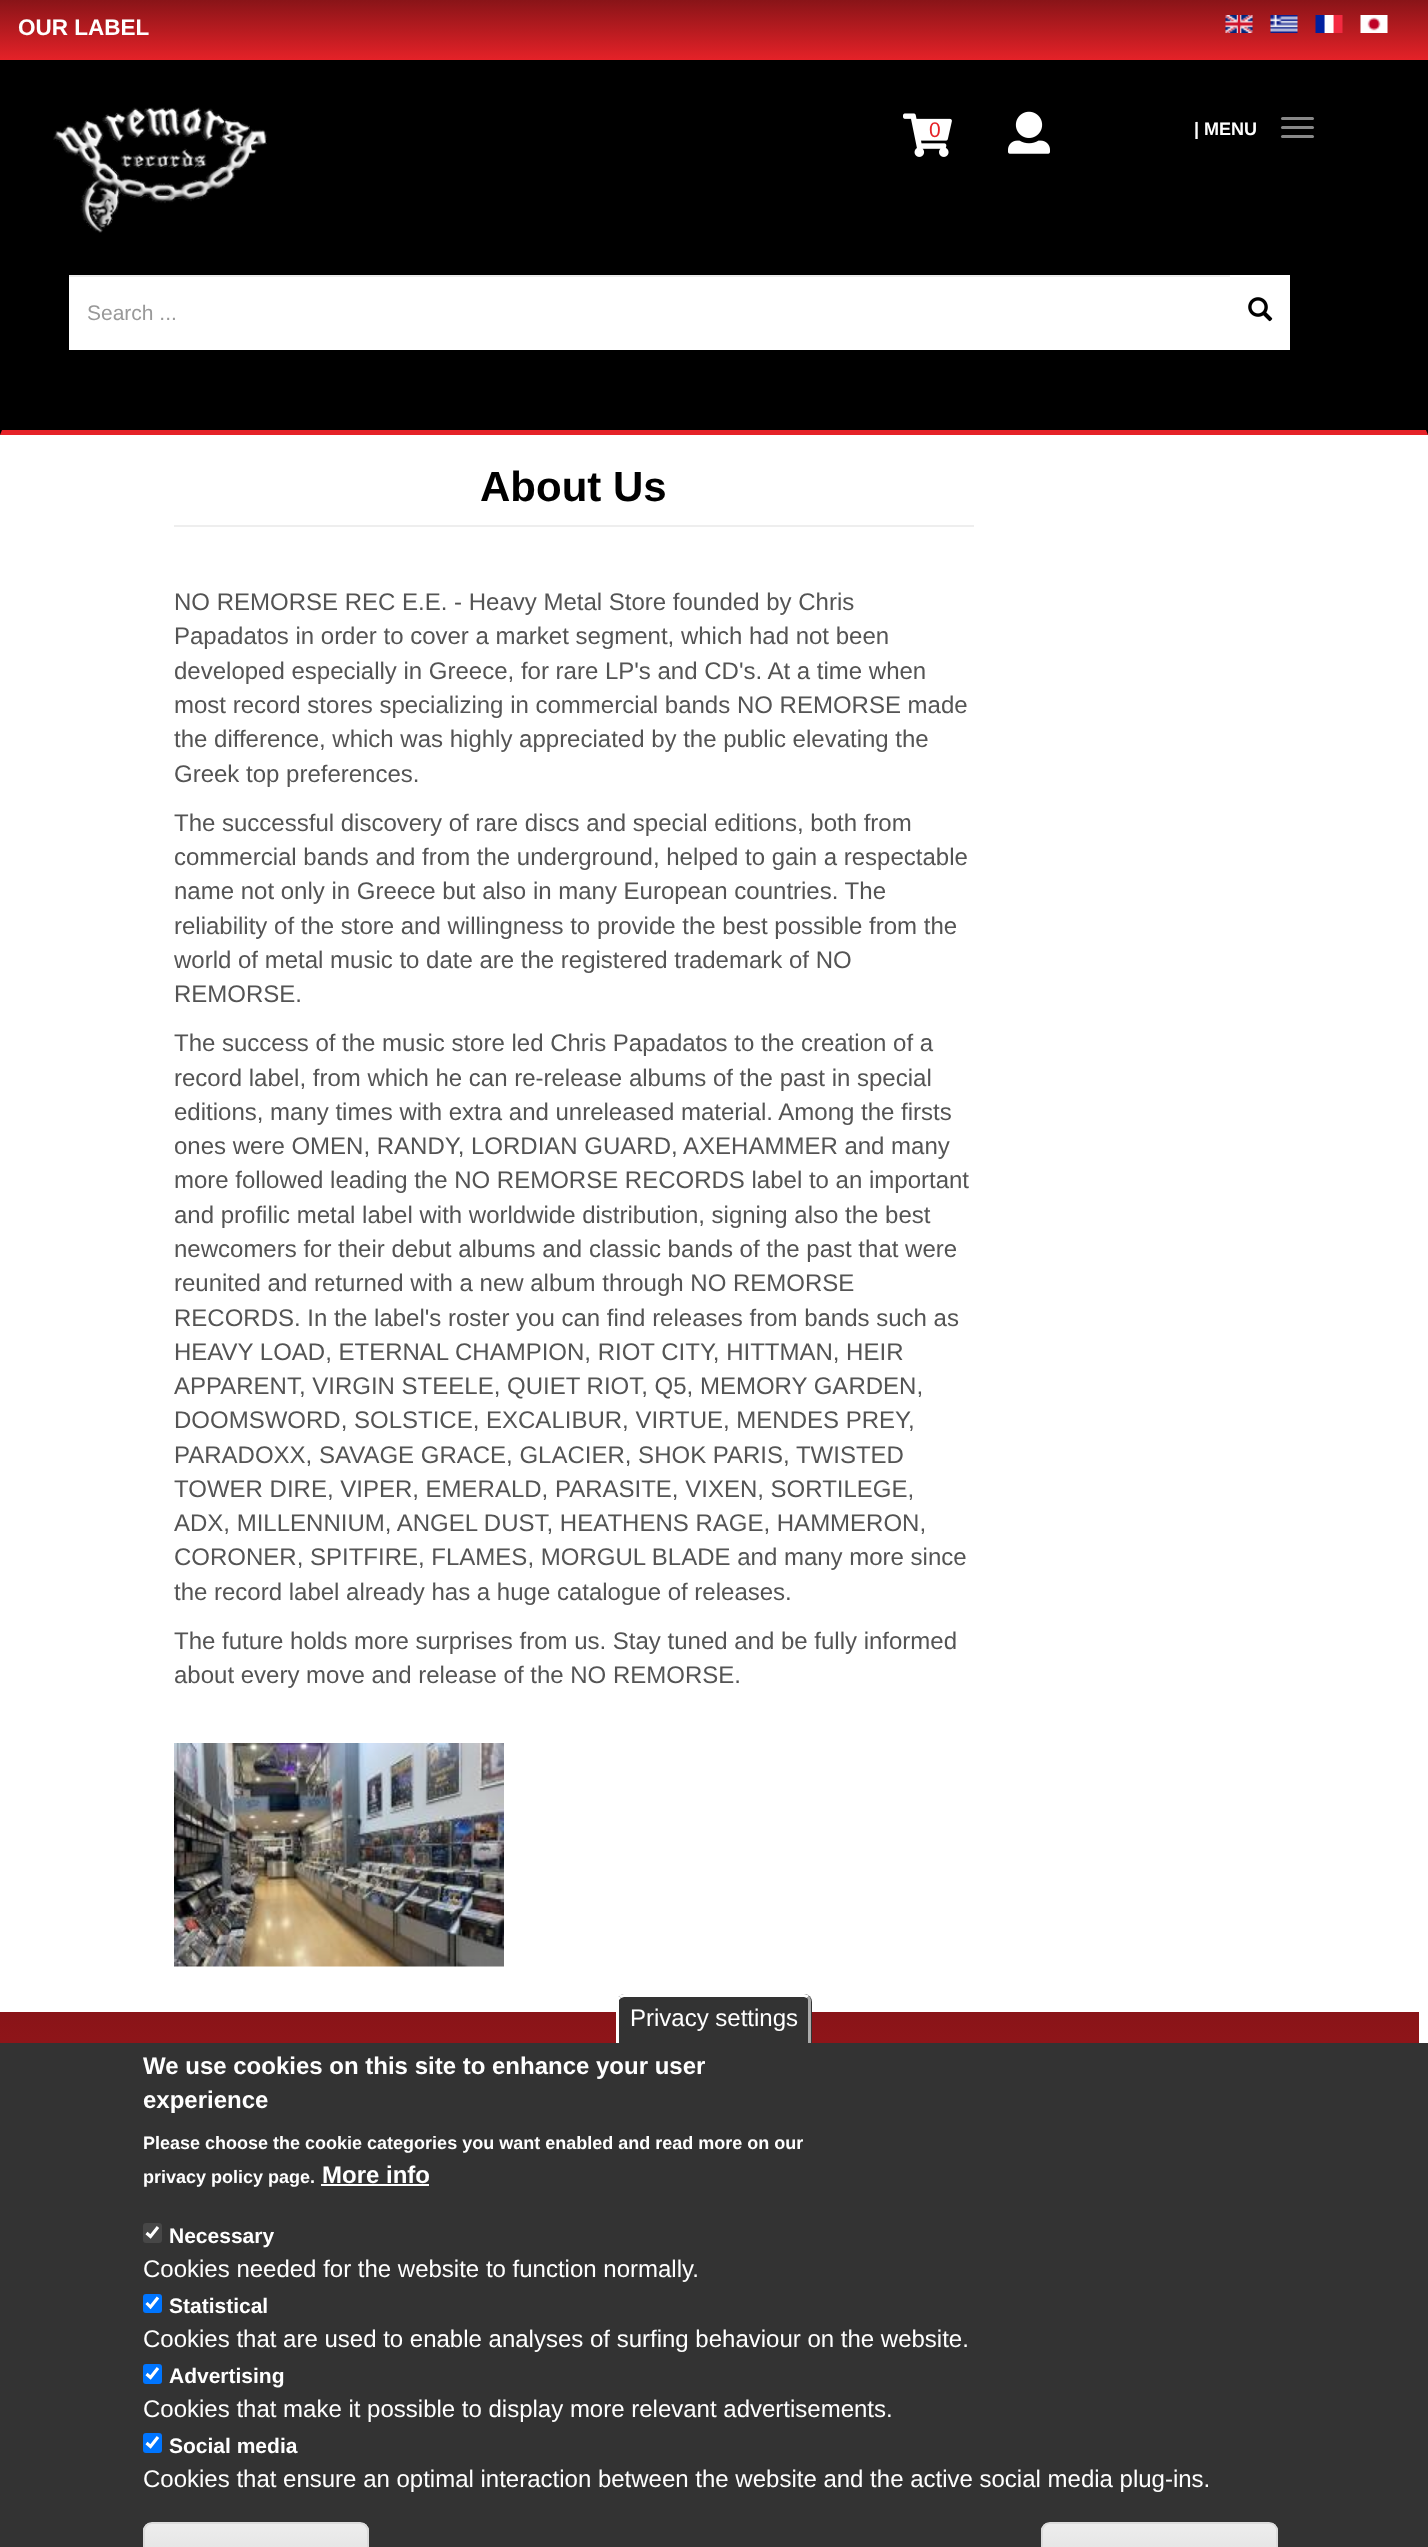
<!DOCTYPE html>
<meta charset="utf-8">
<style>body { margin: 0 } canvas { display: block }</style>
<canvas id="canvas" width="1428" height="2547"></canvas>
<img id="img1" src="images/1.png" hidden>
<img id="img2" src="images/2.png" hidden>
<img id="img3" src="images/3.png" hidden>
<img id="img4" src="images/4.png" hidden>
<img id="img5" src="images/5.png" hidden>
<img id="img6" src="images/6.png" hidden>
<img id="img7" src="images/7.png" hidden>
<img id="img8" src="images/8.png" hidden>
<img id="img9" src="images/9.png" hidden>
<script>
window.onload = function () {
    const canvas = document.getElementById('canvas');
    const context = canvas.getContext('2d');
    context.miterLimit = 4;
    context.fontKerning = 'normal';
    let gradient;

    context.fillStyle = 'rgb(255, 255, 255)';
    context.fillRect(0, 0, 1428, 2547);
    gradient = context.createLinearGradient(714, 0, 714, 60);
    gradient.addColorStop(0, 'rgb(137, 20, 24)');
    gradient.addColorStop(1, 'rgb(229, 34, 40)');
    context.fillStyle = gradient;
    context.fillRect(0, 0, 1428, 60);
    context.drawImage(document.getElementById('img1'), 1225, 15, 28, 18);
    context.drawImage(document.getElementById('img2'), 1270, 15, 28, 18);
    context.drawImage(document.getElementById('img3'), 1315, 15, 28, 18);
    context.drawImage(document.getElementById('img4'), 1360, 15, 28, 18);
    context.fillStyle = 'rgb(0, 0, 0)';
    context.fillRect(0, 60, 1428, 375);
    context.fillStyle = 'rgb(229, 34, 40)';
    context.beginPath();
    context.moveTo(1428, 435);
    context.lineTo(0, 435);
    context.lineTo(2, 430);
    context.lineTo(1426, 430);
    context.closePath();
    context.fill();
    context.drawImage(document.getElementById('img5'), 903, 113, 49, 44);
    context.drawImage(document.getElementById('img6'), 1008, 111, 42, 43);
    context.drawImage(document.getElementById('img7'), 53, 107, 214, 126);
    context.fillStyle = 'rgb(136, 136, 136)';
    context.beginPath();
    context.roundRect(1281, 117, 33, 3, 1.5);
    context.fill();
    context.beginPath();
    context.roundRect(1281, 126, 33, 3, 1.5);
    context.fill();
    context.beginPath();
    context.roundRect(1281, 135, 33, 3, 1.5);
    context.fill();
    context.fillStyle = 'rgb(255, 255, 255)';
    context.fillRect(69, 277, 1161, 73);
    context.fillStyle = 'rgb(236, 236, 236)';
    context.fillRect(69, 275, 1161, 2);
    context.fillStyle = 'rgb(255, 255, 255)';
    context.fillRect(1230, 275, 60, 75);
    context.drawImage(document.getElementById('img8'), 1248, 297, 25, 25);
    context.fillStyle = 'rgb(238, 238, 238)';
    context.fillRect(174, 525, 800, 2);
    context.drawImage(document.getElementById('img9'), 174, 1743, 330, 224);
    context.fillStyle = 'rgb(51, 51, 51)';
    context.fillRect(0, 2043, 1428, 504);
    gradient = context.createLinearGradient(710, 2012, 710, 2507);
    gradient.addColorStop(0, 'rgb(137, 20, 24)');
    gradient.addColorStop(1, 'rgb(229, 34, 40)');
    context.fillStyle = gradient;
    context.fillRect(0, 2012, 1419, 31);
    context.fillStyle = 'rgb(51, 51, 51)';
    context.beginPath();
    context.roundRect(617, 1994, 195, 49, [8, 8, 0, 0]);
    context.fill();
    context.fillStyle = 'rgb(255, 255, 255)';
    context.beginPath();
    context.moveTo(624, 1994);
    context.lineTo(804, 1994);
    context.bezierCurveTo(806, 1994, 808, 1995, 809, 1996);
    context.lineTo(807, 1998);
    context.lineTo(804, 1997);
    context.lineTo(624, 1997);
    context.lineTo(621, 1998);
    context.lineTo(619, 1996);
    context.bezierCurveTo(620, 1995, 622, 1994, 624, 1994);
    context.closePath();
    context.fill();
    context.fillStyle = 'rgb(170, 170, 170)';
    context.beginPath();
    context.moveTo(807, 1998);
    context.bezierCurveTo(808, 1999, 808, 2000, 808, 2001);
    context.lineTo(808, 2043);
    context.lineTo(811, 2043);
    context.lineTo(811, 2001);
    context.bezierCurveTo(811, 1999, 810, 1997, 809, 1996);
    context.closePath();
    context.fill();
    context.fillStyle = 'rgb(255, 255, 255)';
    context.beginPath();
    context.moveTo(619, 1996);
    context.lineTo(621, 1998);
    context.lineTo(619, 2000);
    context.lineTo(619, 2043);
    context.lineTo(616, 2043);
    context.lineTo(616, 1999);
    context.closePath();
    context.fill();
    context.fillRect(321, 2184, 108, 2);
    context.fillStyle = 'rgb(71, 71, 71)';
    context.beginPath();
    context.roundRect(143, 2223, 19, 20, 3);
    context.fill();
    context.beginPath();
    context.moveTo(146.5, 2233);
    context.lineTo(150.5, 2236.5);
    context.lineTo(158, 2227);
    context.strokeStyle = 'rgb(255, 255, 255)';
    context.lineWidth = 3.1;
    context.stroke();
    context.fillStyle = 'rgb(0, 117, 255)';
    context.beginPath();
    context.roundRect(143, 2294, 19, 19, 3);
    context.fill();
    context.beginPath();
    context.moveTo(146.5, 2303);
    context.lineTo(150.5, 2307);
    context.lineTo(158, 2297.5);
    context.stroke();
    context.beginPath();
    context.roundRect(143, 2364, 19, 20, 3);
    context.fill();
    context.beginPath();
    context.moveTo(146.5, 2374);
    context.lineTo(150.5, 2377.5);
    context.lineTo(158, 2368);
    context.stroke();
    context.beginPath();
    context.roundRect(143, 2433, 19, 20, 3);
    context.fill();
    context.beginPath();
    context.moveTo(146.5, 2443);
    context.lineTo(150.5, 2446.5);
    context.lineTo(158, 2437);
    context.stroke();
    context.save();
    context.beginPath();
    context.roundRect(143, 2522, 226, 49, 9);
    context.clip();
    gradient = context.createLinearGradient(256, 2523, 256, 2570);
    gradient.addColorStop(0.05, 'rgb(237, 237, 237)');
    gradient.addColorStop(1, 'rgb(223, 223, 223)');
    context.fillStyle = gradient;
    context.fillRect(143, 2523, 226, 24);
    context.restore();
    context.beginPath();
    context.roundRect(144, 2523, 224, 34, 8);
    context.strokeStyle = 'rgb(220, 220, 220)';
    context.lineWidth = 2;
    context.stroke();
    context.save();
    context.beginPath();
    context.roundRect(1041, 2522, 237, 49, 9);
    context.clip();
    gradient = context.createLinearGradient(1160, 2523, 1160, 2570);
    gradient.addColorStop(0.05, 'rgb(237, 237, 237)');
    gradient.addColorStop(1, 'rgb(223, 223, 223)');
    context.fillStyle = gradient;
    context.fillRect(1041, 2523, 237, 24);
    context.restore();
    context.fillStyle = 'rgb(255, 255, 255)';
    context.beginPath();
    context.moveTo(1050, 2524);
    context.lineTo(1269, 2524);
    context.bezierCurveTo(1273, 2524, 1276, 2528, 1276, 2532);
    context.lineTo(1276, 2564);
    context.lineTo(1276, 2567);
    context.bezierCurveTo(1276, 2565, 1277, 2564, 1277, 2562);
    context.lineTo(1277, 2531);
    context.bezierCurveTo(1277, 2527, 1273, 2523, 1269, 2523);
    context.lineTo(1051, 2523);
    context.bezierCurveTo(1048, 2523, 1046, 2525, 1044, 2527);
    context.bezierCurveTo(1046, 2525, 1048, 2524, 1050, 2524);
    context.closePath();
    context.fill();
    context.beginPath();
    context.roundRect(1042, 2523, 235, 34, 8);
    context.stroke();
    context.font = 'bold 22.5px Liberation Sans';
    context.fillText('OUR LABEL', 18, 35);
    context.font = '21px Liberation Sans';
    context.fillStyle = 'rgb(229, 34, 40)';
    context.fillText('0', 929, 137);
    context.font = 'bold 18px Liberation Sans';
    context.fillStyle = 'rgb(255, 255, 255)';
    context.fillText('| MENU', 1194, 135);
    context.font = '21px Liberation Sans';
    context.fillStyle = 'rgb(153, 153, 153)';
    context.fillText('Search ...', 87, 320);
    context.font = 'bold 42px Liberation Sans';
    context.fillStyle = 'rgb(0, 0, 0)';
    context.fillText('About Us', 480, 501);
    context.font = '24px Liberation Sans';
    context.fillStyle = 'rgb(84, 84, 84)';
    context.fillText('NO REMORSE REC E.E. - Heavy Metal Store founded by Chris', 174, 610);
    context.fillText('Papadatos in order to cover a market segment, which had not been', 174, 644);
    context.fillText('developed especially in Greece, for rare LP\'s and CD\'s. At a time when', 174, 679);
    context.fillText('most record stores specializing in commercial bands NO REMORSE made', 174, 713);
    context.fillText('the difference, which was highly appreciated by the public elevating the', 174, 747);
    context.fillText('Greek top preferences.', 174, 782);
    context.fillText('The successful discovery of rare discs and special editions, both from', 174, 831);
    context.fillText('commercial bands and from the underground, helped to gain a respectable', 174, 865);
    context.fillText('name not only in Greece but also in many European countries. The', 174, 899);
    context.fillText('reliability of the store and willingness to provide the best possible from the', 174, 934);
    context.fillText('world of metal music to date are the registered trademark of NO', 174, 968);
    context.fillText('REMORSE.', 174, 1002);
    context.fillText('The success of the music store led Chris Papadatos to the creation of a', 174, 1051);
    context.fillText('record label, from which he can re-release albums of the past in special', 174, 1086);
    context.fillText('editions, many times with extra and unreleased material. Among the firsts', 174, 1120);
    context.fillText('ones were OMEN, RANDY, LORDIAN GUARD, AXEHAMMER and many', 174, 1154);
    context.fillText('more followed leading the NO REMORSE RECORDS label to an important', 174, 1188);
    context.fillText('and profilic metal label with worldwide distribution, signing also the best', 174, 1223);
    context.fillText('newcomers for their debut albums and classic bands of the past that were', 174, 1257);
    context.fillText('reunited and returned with a new album through NO REMORSE', 174, 1291);
    context.fillText('RECORDS. In the label\'s roster you can find releases from bands such as', 174, 1326);
    context.fillText('HEAVY LOAD, ETERNAL CHAMPION, RIOT CITY, HITTMAN, HEIR', 174, 1360);
    context.fillText('APPARENT, VIRGIN STEELE, QUIET RIOT, Q5, MEMORY GARDEN,', 174, 1394);
    context.fillText('DOOMSWORD, SOLSTICE, EXCALIBUR, VIRTUE, MENDES PREY,', 174, 1428);
    context.fillText('PARADOXX, SAVAGE GRACE, GLACIER, SHOK PARIS, TWISTED', 174, 1463);
    context.fillText('TOWER DIRE, VIPER, EMERALD, PARASITE, VIXEN, SORTILEGE,', 174, 1497);
    context.fillText('ADX, MILLENNIUM, ANGEL DUST, HEATHENS RAGE, HAMMERON,', 174, 1531);
    context.fillText('CORONER, SPITFIRE, FLAMES, MORGUL BLADE and many more since', 174, 1565);
    context.fillText('the record label already has a huge catalogue of releases.', 174, 1600);
    context.fillText('The future holds more surprises from us. Stay tuned and be fully informed', 174, 1649);
    context.fillText('about every move and release of the NO REMORSE.', 174, 1683);
    context.fillStyle = 'rgb(255, 255, 255)';
    context.fillText('Privacy settings', 630, 2026);
    context.font = 'bold 24px Liberation Sans';
    context.fillText('We use cookies on this site to enhance your user', 143, 2074);
    context.fillText('experience', 143, 2108);
    context.font = 'bold 18px Liberation Sans';
    context.fillText('Please choose the cookie categories you want enabled and read more on our', 143, 2149);
    context.fillText('privacy policy page.', 143, 2183);
    context.font = 'bold 24px Liberation Sans';
    context.fillText('More info', 322, 2183);
    context.font = 'bold 21px Liberation Sans';
    context.fillText('Necessary', 169, 2243);
    context.font = '24px Liberation Sans';
    context.fillText('Cookies needed for the website to function normally.', 143, 2277);
    context.font = 'bold 21px Liberation Sans';
    context.fillText('Statistical', 169, 2313);
    context.font = '24px Liberation Sans';
    context.fillText('Cookies that are used to enable analyses of surfing behaviour on the website.', 143, 2347);
    context.font = 'bold 21px Liberation Sans';
    context.fillText('Advertising', 169, 2383);
    context.font = '24px Liberation Sans';
    context.fillText('Cookies that make it possible to display more relevant advertisements.', 143, 2417);
    context.font = 'bold 21px Liberation Sans';
    context.fillText('Social media', 169, 2453);
    context.font = '24px Liberation Sans';
    context.fillText('Cookies that ensure an optimal interaction between the website and the active social media plug-ins.', 143, 2487);
};
</script>
